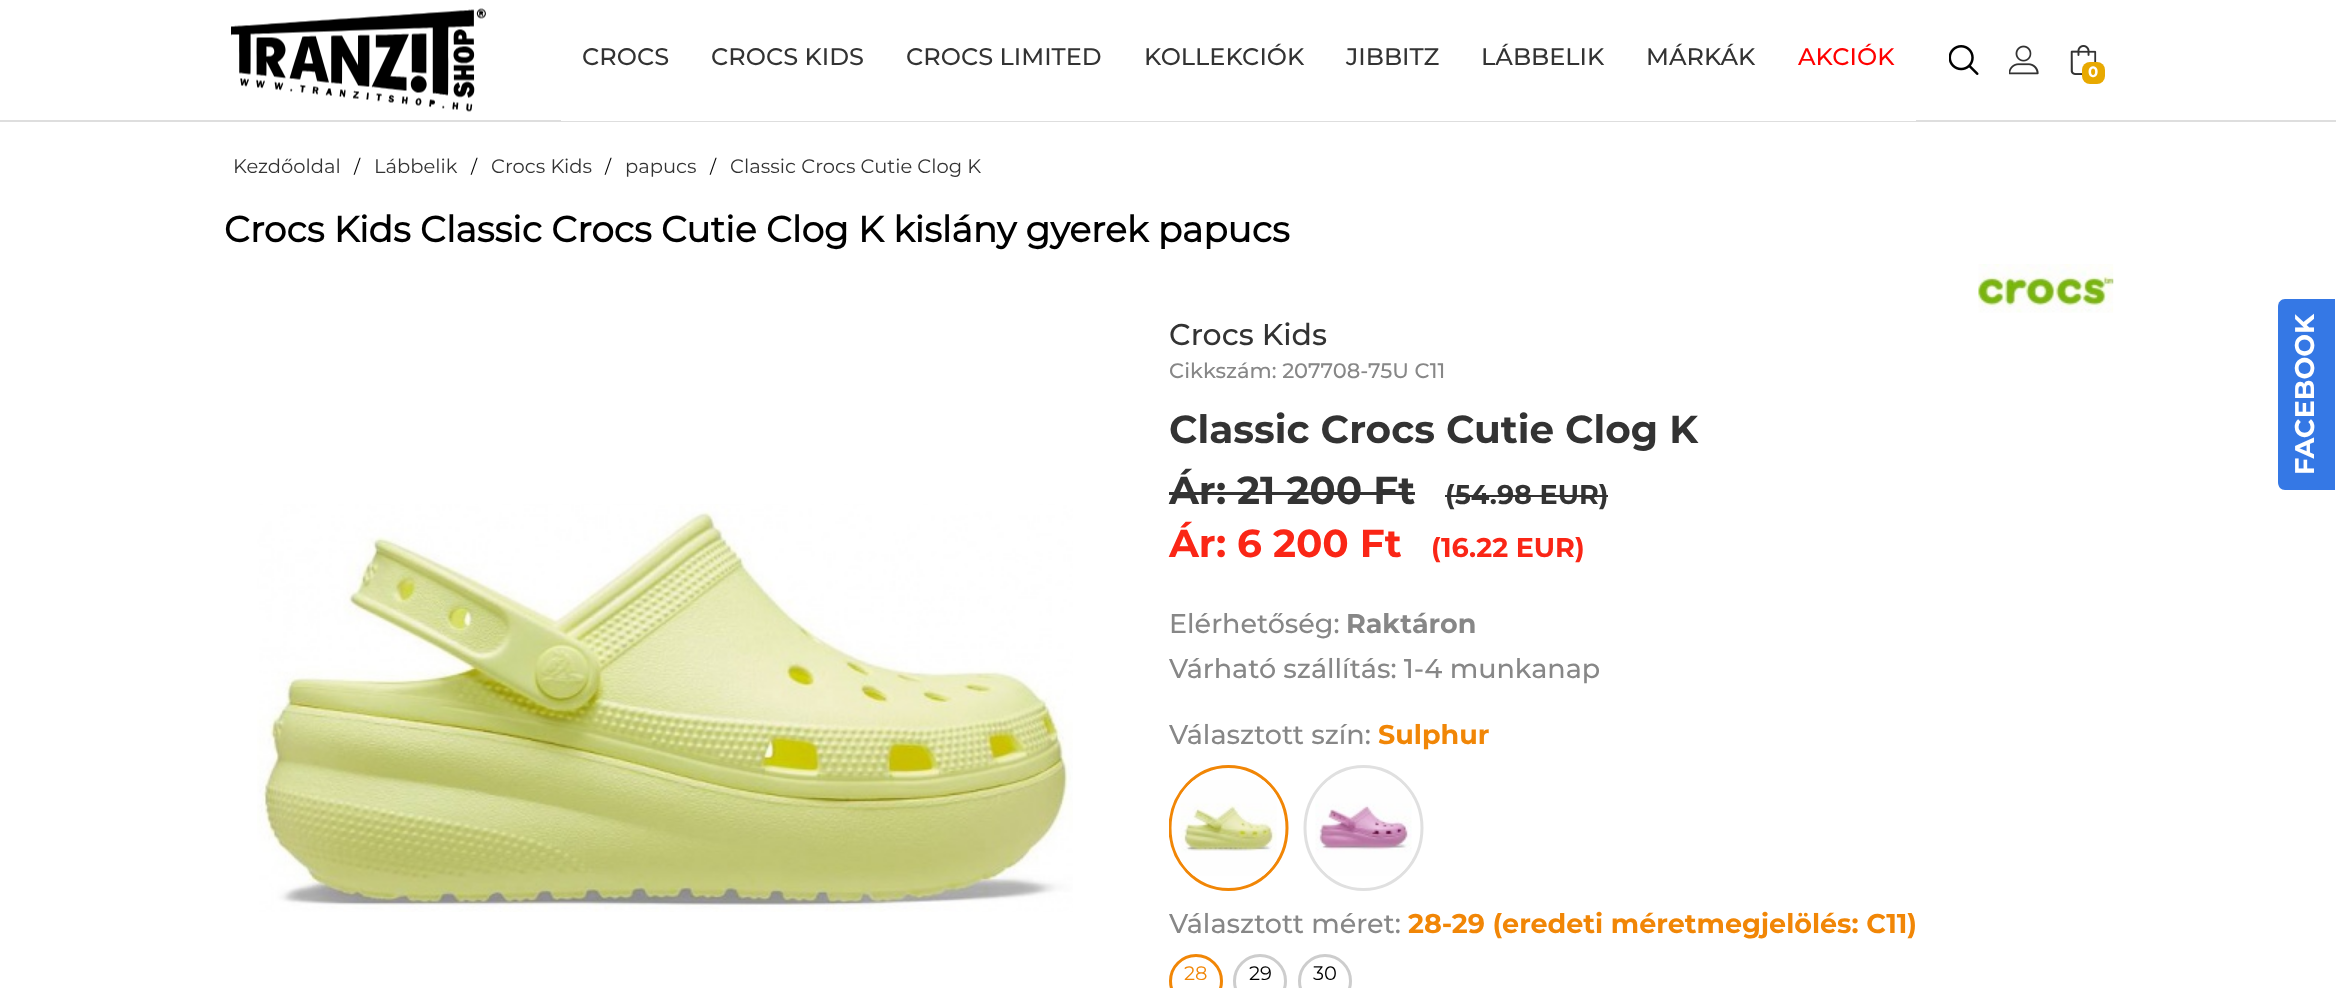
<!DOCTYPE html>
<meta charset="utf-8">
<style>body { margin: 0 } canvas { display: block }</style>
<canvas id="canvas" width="2336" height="988"></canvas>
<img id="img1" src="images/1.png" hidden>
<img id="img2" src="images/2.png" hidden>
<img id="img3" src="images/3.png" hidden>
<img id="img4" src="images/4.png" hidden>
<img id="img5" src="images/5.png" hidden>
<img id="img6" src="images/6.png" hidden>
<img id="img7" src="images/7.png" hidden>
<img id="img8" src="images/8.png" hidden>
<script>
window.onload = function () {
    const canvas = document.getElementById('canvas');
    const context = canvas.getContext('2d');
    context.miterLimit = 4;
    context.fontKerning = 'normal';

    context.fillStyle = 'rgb(255, 255, 255)';
    context.fillRect(0, 0, 2336, 988);
    context.fillStyle = 'rgb(222, 222, 222)';
    context.fillRect(0, 120, 2336, 2);
    context.drawImage(document.getElementById('img1'), 231, 8, 255, 104);
    context.fillStyle = 'rgb(255, 255, 255)';
    context.fillRect(561, 120, 1355, 1);
    context.drawImage(document.getElementById('img2'), 1949, 45, 30, 30);
    context.drawImage(document.getElementById('img3'), 2009, 45, 30, 30);
    context.drawImage(document.getElementById('img4'), 2070, 45, 27, 30);
    context.fillStyle = 'rgb(232, 169, 0)';
    context.beginPath();
    context.roundRect(2082, 62, 23, 22, 8);
    context.fill();
    context.drawImage(document.getElementById('img5'), 257, 504, 816, 408);
    context.drawImage(document.getElementById('img6'), 1978, 264, 136, 49);
    context.fillStyle = 'rgb(51, 51, 51)';
    context.fillRect(1169, 492, 246, 3);
    context.fillRect(1445, 495, 163, 2);
    context.save();
    context.beginPath();
    context.rect(1169, 264, 945, 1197);
    context.clip();
    context.beginPath();
    context.moveTo(1228.5, 766.5);
    context.bezierCurveTo(1261, 766.5, 1287, 794, 1287, 828);
    context.bezierCurveTo(1287, 862, 1261, 889.5, 1228.5, 889.5);
    context.bezierCurveTo(1196, 889.5, 1170, 862, 1170, 828);
    context.bezierCurveTo(1170, 794, 1196, 766.5, 1228.5, 766.5);
    context.closePath();
    context.strokeStyle = 'rgb(241, 134, 6)';
    context.lineWidth = 3;
    context.stroke();
    context.restore();
    context.drawImage(document.getElementById('img7'), 1180, 780, 97, 96);
    context.beginPath();
    context.moveTo(1363.5, 766.5);
    context.bezierCurveTo(1396, 766.5, 1422, 794, 1422, 828);
    context.bezierCurveTo(1422, 862, 1396, 889.5, 1363.5, 889.5);
    context.bezierCurveTo(1331, 889.5, 1305, 862, 1305, 828);
    context.bezierCurveTo(1305, 794, 1331, 766.5, 1363.5, 766.5);
    context.closePath();
    context.strokeStyle = 'rgb(224, 224, 224)';
    context.lineWidth = 3;
    context.stroke();
    context.drawImage(document.getElementById('img8'), 1315, 780, 97, 96);
    context.beginPath();
    context.arc(1196, 981, 25.5, 0, 2 * Math.PI);
    context.strokeStyle = 'rgb(241, 134, 6)';
    context.stroke();
    context.beginPath();
    context.arc(1260, 981, 25.5, 0, 2 * Math.PI);
    context.strokeStyle = 'rgb(205, 205, 205)';
    context.stroke();
    context.beginPath();
    context.arc(1325, 981, 25.5, 0, 2 * Math.PI);
    context.stroke();
    context.fillStyle = 'rgb(53, 120, 229)';
    context.beginPath();
    context.moveTo(2278, 482);
    context.lineTo(2278, 307);
    context.bezierCurveTo(2278, 302, 2281, 299, 2285, 299);
    context.lineTo(2335, 299);
    context.lineTo(2335, 490);
    context.lineTo(2285, 490);
    context.bezierCurveTo(2281, 490, 2278, 487, 2278, 482);
    context.closePath();
    context.fill();
    context.font = '500 24px Montserrat';
    context.fillStyle = 'rgb(51, 51, 51)';
    context.fillText('CROCS', 582, 65);
    context.fillText('CROCS KIDS', 711, 65);
    context.fillText('CROCS LIMITED', 906, 65);
    context.fillText('KOLLEKCIÓK', 1144, 65);
    context.fillText('JIBBITZ', 1346, 65);
    context.fillText('LÁBBELIK', 1481, 65);
    context.fillText('MÁRKÁK', 1646, 65);
    context.fillStyle = 'rgb(255, 0, 0)';
    context.fillText('AKCIÓK', 1798, 65);
    context.font = 'bold 15px "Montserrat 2"';
    context.fillStyle = 'rgb(255, 255, 255)';
    context.fillText('0', 2088, 77);
    context.font = '19.5px Montserrat';
    context.fillStyle = 'rgb(51, 51, 51)';
    context.fillText('Kezdőoldal', 233, 173);
    context.font = '18px Montserrat';
    context.fillStyle = 'rgb(0, 0, 0)';
    context.fillText('/', 354, 173);
    context.font = '19.5px Montserrat';
    context.fillStyle = 'rgb(51, 51, 51)';
    context.fillText('Lábbelik', 374, 173);
    context.font = '18px Montserrat';
    context.fillStyle = 'rgb(0, 0, 0)';
    context.fillText('/', 471, 173);
    context.font = '19.5px Montserrat';
    context.fillStyle = 'rgb(51, 51, 51)';
    context.fillText('Crocs Kids', 491, 173);
    context.font = '18px Montserrat';
    context.fillStyle = 'rgb(0, 0, 0)';
    context.fillText('/', 605, 173);
    context.font = '19.5px Montserrat';
    context.fillStyle = 'rgb(51, 51, 51)';
    context.fillText('papucs', 625, 173);
    context.font = '18px Montserrat';
    context.fillStyle = 'rgb(0, 0, 0)';
    context.fillText('/', 710, 173);
    context.font = '19.5px Montserrat';
    context.fillStyle = 'rgb(51, 51, 51)';
    context.fillText('Classic Crocs Cutie Clog K', 730, 173);
    context.font = 'bold 36px Montserrat';
    context.fillStyle = 'rgb(0, 0, 0)';
    context.fillText('Crocs Kids Classic Crocs Cutie Clog K kislány gyerek papucs', 224, 242);
    context.font = '500 30px Montserrat';
    context.fillStyle = 'rgb(51, 51, 51)';
    context.fillText('Crocs Kids', 1169, 345);
    context.font = '500 21px Montserrat';
    context.fillStyle = 'rgb(135, 135, 135)';
    context.fillText('Cikkszám: 207708-75U C11', 1169, 378);
    context.font = 'bold 39px "Montserrat 2"';
    context.fillStyle = 'rgb(51, 51, 51)';
    context.fillText('Classic Crocs Cutie Clog K', 1169, 443);
    context.fillText('Ár: 21 200 Ft', 1169, 504);
    context.font = 'bold 27px "Montserrat 2"';
    context.fillText('(54.98 EUR)', 1445, 504);
    context.font = 'bold 39px "Montserrat 2"';
    context.fillStyle = 'rgb(250, 38, 22)';
    context.fillText('Ár: 6 200 Ft', 1169, 557);
    context.font = 'bold 27px "Montserrat 2"';
    context.fillText('(16.22 EUR)', 1431, 557);
    context.font = '500 27px Montserrat';
    context.fillStyle = 'rgb(135, 135, 135)';
    context.fillText('Elérhetőség:', 1169, 633);
    context.font = 'bold 27px "Montserrat 2"';
    context.fillText('Raktáron', 1346, 633);
    context.font = '500 27px Montserrat';
    context.fillText('Várható szállítás: 1-4 munkanap', 1169, 678);
    context.fillText('Választott szín:', 1169, 744);
    context.font = 'bold 27px "Montserrat 2"';
    context.fillStyle = 'rgb(241, 134, 6)';
    context.fillText('Sulphur', 1378, 744);
    context.font = '500 27px Montserrat';
    context.fillStyle = 'rgb(135, 135, 135)';
    context.fillText('Választott méret:', 1169, 933);
    context.font = 'bold 27px "Montserrat 2"';
    context.fillStyle = 'rgb(241, 134, 6)';
    context.fillText('28-29 (eredeti méretmegjelölés: C11)', 1408, 933);
    context.font = '19.5px Montserrat';
    context.fillText('28', 1184, 980);
    context.fillStyle = 'rgb(0, 0, 0)';
    context.fillText('29', 1249, 980);
    context.fillText('30', 1313, 980);
    context.font = 'bold 27px "Montserrat 2"';
    context.fillStyle = 'rgb(255, 255, 255)';
    context.save();
    context.translate(2314, 475);
    context.rotate(-90 * Math.PI / 180);
    context.fillText('FACEBOOK', 0, 0);
    context.restore();
};
</script>
